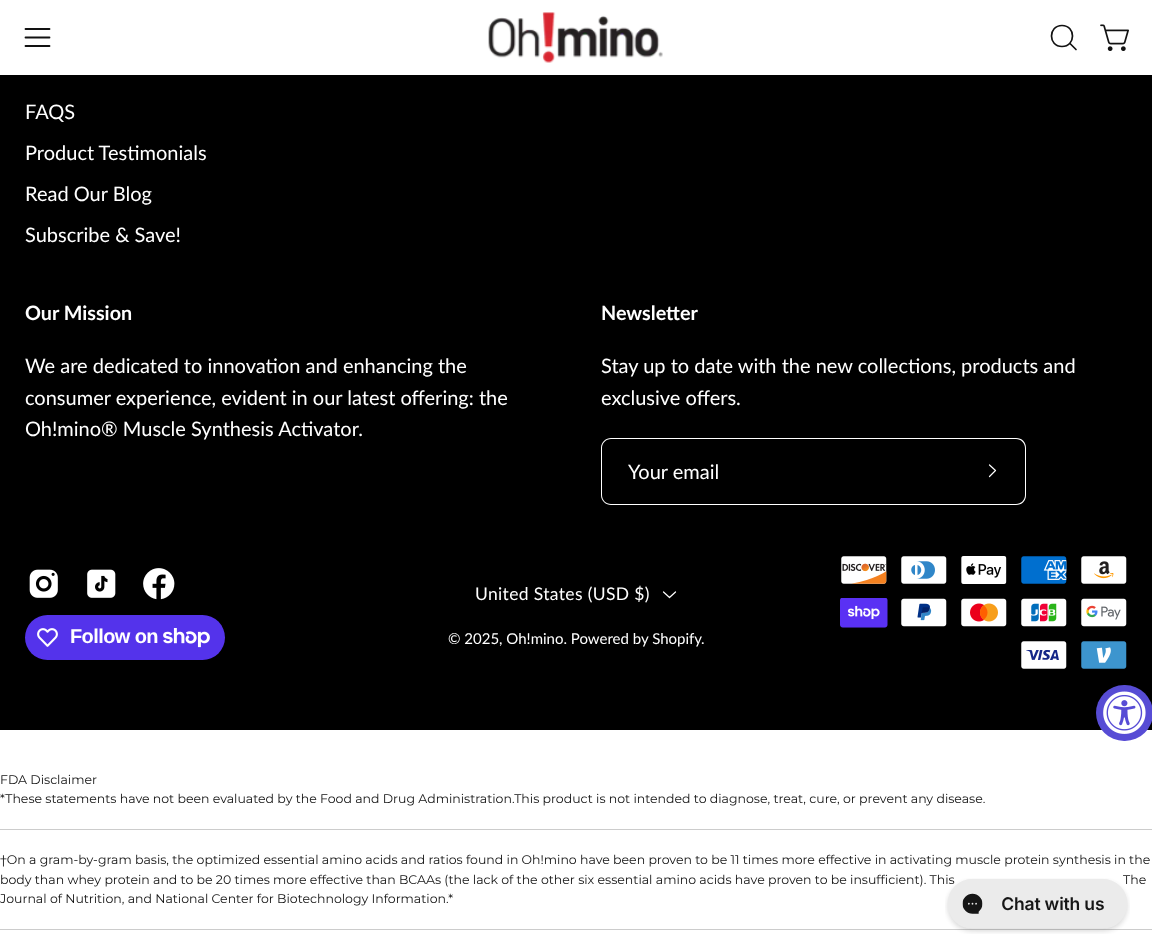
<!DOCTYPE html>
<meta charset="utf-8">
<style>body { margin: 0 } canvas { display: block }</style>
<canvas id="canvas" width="1152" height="949"></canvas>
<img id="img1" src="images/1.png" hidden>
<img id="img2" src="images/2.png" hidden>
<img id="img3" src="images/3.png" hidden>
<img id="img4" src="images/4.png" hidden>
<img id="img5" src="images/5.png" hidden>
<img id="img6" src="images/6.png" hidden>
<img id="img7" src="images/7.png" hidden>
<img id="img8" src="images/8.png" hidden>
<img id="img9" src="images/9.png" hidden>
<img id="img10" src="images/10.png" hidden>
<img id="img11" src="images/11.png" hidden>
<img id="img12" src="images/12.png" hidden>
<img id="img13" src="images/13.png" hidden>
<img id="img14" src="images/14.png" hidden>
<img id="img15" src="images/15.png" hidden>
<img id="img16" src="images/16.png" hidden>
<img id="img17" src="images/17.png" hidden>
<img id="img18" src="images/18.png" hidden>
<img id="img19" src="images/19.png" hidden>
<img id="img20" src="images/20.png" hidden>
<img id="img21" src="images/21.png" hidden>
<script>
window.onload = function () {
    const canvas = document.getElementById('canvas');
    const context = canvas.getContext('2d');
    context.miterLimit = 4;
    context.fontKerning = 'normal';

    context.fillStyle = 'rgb(255, 255, 255)';
    context.fillRect(0, 0, 1152, 949);
    context.beginPath();
    context.moveTo(25.5, 37.5);
    context.lineTo(49.5, 37.5);
    context.moveTo(25.5, 29);
    context.lineTo(49.5, 29);
    context.moveTo(25.5, 46);
    context.lineTo(49.5, 46);
    context.strokeStyle = 'rgb(18, 18, 18)';
    context.lineWidth = 1.8;
    context.lineCap = 'round';
    context.lineJoin = 'round';
    context.stroke();
    context.drawImage(document.getElementById('img1'), 488, 12, 175, 51);
    context.beginPath();
    context.moveTo(1062, 46.5);
    context.bezierCurveTo(1076, 46.5, 1076, 25.5, 1062, 25.5);
    context.bezierCurveTo(1048, 25.5, 1048, 46.5, 1062, 46.5);
    context.closePath();
    context.moveTo(1070, 43.5);
    context.lineTo(1076, 49.5);
    context.lineWidth = 1.7;
    context.stroke();
    context.drawImage(document.getElementById('img2'), 1100, 24, 29, 27);
    context.fillStyle = 'rgb(0, 0, 0)';
    context.fillRect(0, 75, 1152, 655);
    context.fillStyle = 'rgb(255, 255, 255)';
    context.beginPath();
    context.moveTo(611, 438);
    context.lineTo(959, 438);
    context.lineTo(959, 505);
    context.lineTo(611, 505);
    context.bezierCurveTo(606, 505, 601, 501, 601, 495);
    context.lineTo(601, 448);
    context.bezierCurveTo(601, 442, 606, 438, 611, 438);
    context.closePath();
    context.moveTo(611, 439);
    context.lineTo(959, 439);
    context.lineTo(959, 504);
    context.lineTo(611, 504);
    context.bezierCurveTo(606, 504, 602, 500, 602, 495);
    context.lineTo(602, 448);
    context.bezierCurveTo(602, 443, 606, 439, 611, 439);
    context.closePath();
    context.fill('evenodd');
    context.beginPath();
    context.moveTo(959, 438);
    context.lineTo(1016, 438);
    context.bezierCurveTo(1022, 438, 1026, 442, 1026, 448);
    context.lineTo(1026, 495);
    context.bezierCurveTo(1026, 501, 1022, 505, 1016, 505);
    context.lineTo(959, 505);
    context.closePath();
    context.moveTo(959, 439);
    context.lineTo(1016, 439);
    context.bezierCurveTo(1021, 439, 1025, 443, 1025, 448);
    context.lineTo(1025, 495);
    context.bezierCurveTo(1025, 500, 1021, 504, 1016, 504);
    context.lineTo(959, 504);
    context.closePath();
    context.fill('evenodd');
    context.beginPath();
    context.moveTo(989.5, 465);
    context.lineTo(995.5, 470.5);
    context.lineTo(989.5, 476.5);
    context.strokeStyle = 'rgb(255, 255, 255)';
    context.lineWidth = 1.2;
    context.stroke();
    context.drawImage(document.getElementById('img3'), 29, 569, 29, 29);
    context.drawImage(document.getElementById('img4'), 87, 569, 29, 29);
    context.drawImage(document.getElementById('img5'), 143, 568, 32, 32);
    context.fillStyle = 'rgb(84, 51, 235)';
    context.beginPath();
    context.roundRect(25, 615, 200, 45, 22.5);
    context.fill();
    context.drawImage(document.getElementById('img6'), 37, 628, 21, 19);
    context.drawImage(document.getElementById('img7'), 163, 628, 47, 20);
    context.beginPath();
    context.moveTo(675.5, 592);
    context.lineTo(669.5, 597.5);
    context.lineTo(663.5, 592);
    context.stroke();
    context.drawImage(document.getElementById('img8'), 841, 556, 46, 28);
    context.drawImage(document.getElementById('img9'), 901, 556, 46, 28);
    context.drawImage(document.getElementById('img10'), 961, 556, 46, 28);
    context.drawImage(document.getElementById('img11'), 1021, 556, 46, 28);
    context.drawImage(document.getElementById('img12'), 1081, 556, 46, 28);
    context.drawImage(document.getElementById('img13'), 840, 598, 48, 30);
    context.drawImage(document.getElementById('img14'), 901, 598, 46, 29);
    context.drawImage(document.getElementById('img15'), 961, 598, 46, 29);
    context.drawImage(document.getElementById('img16'), 1021, 598, 46, 29);
    context.drawImage(document.getElementById('img17'), 1081, 598, 46, 29);
    context.drawImage(document.getElementById('img18'), 1021, 641, 46, 28);
    context.drawImage(document.getElementById('img19'), 1081, 641, 46, 28);
    context.fillStyle = 'rgb(87, 76, 213)';
    context.beginPath();
    context.roundRect(1096, 685, 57, 56, 28);
    context.fill();
    context.drawImage(document.getElementById('img20'), 1103, 691, 43, 43);
    context.fillStyle = 'rgb(204, 204, 204)';
    context.fillRect(0, 829, 1152, 1);
    context.fillRect(0, 929, 1152, 1);
    context.font = '20px Lato';
    context.fillStyle = 'rgb(255, 255, 255)';
    context.fillText('FAQS', 25, 119);
    context.fillText('Product Testimonials', 25, 160);
    context.fillText('Read Our Blog', 25, 201);
    context.fillText('Subscribe & Save!', 25, 242);
    context.font = 'bold 19.75px Lato';
    context.fillText('Our Mission', 25, 320);
    context.font = '20px Lato';
    context.fillText('We are dedicated to innovation and enhancing the', 25, 373);
    context.fillText('consumer experience, evident in our latest offering: the', 25, 405);
    context.fillText('Oh!mino® Muscle Synthesis Activator.', 25, 436);
    context.font = 'bold 19.75px Lato';
    context.fillText('Newsletter', 601, 320);
    context.font = '20px Lato';
    context.fillText('Stay up to date with the new collections, products and', 601, 373);
    context.fillText('exclusive offers.', 601, 405);
    context.fillText('Your email', 628, 479);
    context.letterSpacing = '-0.6px';
    context.font = 'bold 20px Liberation Sans';
    context.fillText('Follow on', 70, 643);
    context.letterSpacing = '0.35px';
    context.font = '17.5px Lato';
    context.fillText('United States (USD $)', 475, 600);
    context.letterSpacing = '0px';
    context.font = '15px Lato';
    context.fillText('© 2025, Oh!mino. Powered by Shopify', 448, 644);
    context.fillText('.', 701, 644);
    context.font = '12.5px Montserrat';
    context.fillStyle = 'rgb(18, 18, 18)';
    context.fillText('FDA Disclaimer', 0, 784);
    context.fillText('*These statements have not been evaluated by the Food and Drug Administration.This product is not intended to diagnose, treat, cure, or prevent any disease.', 0, 803);
    context.fillText('†On a gram-by-gram basis, the optimized essential amino acids and ratios found in Oh!mino have been proven to be 11 times more effective in activating muscle protein synthesis in the', 0, 864);
    context.fillText('body than whey protein and to be 20 times more effective than BCAAs (the lack of the other six essential amino acids have proven to be insufficient). This', 0, 884);
    context.fillText('The', 1123, 884);
    context.fillText('Journal of Nutrition, and National Center for Biotechnology Information.*', 0, 903);
    context.drawImage(document.getElementById('img21'), 945, 878, 185, 56);
};
</script>
